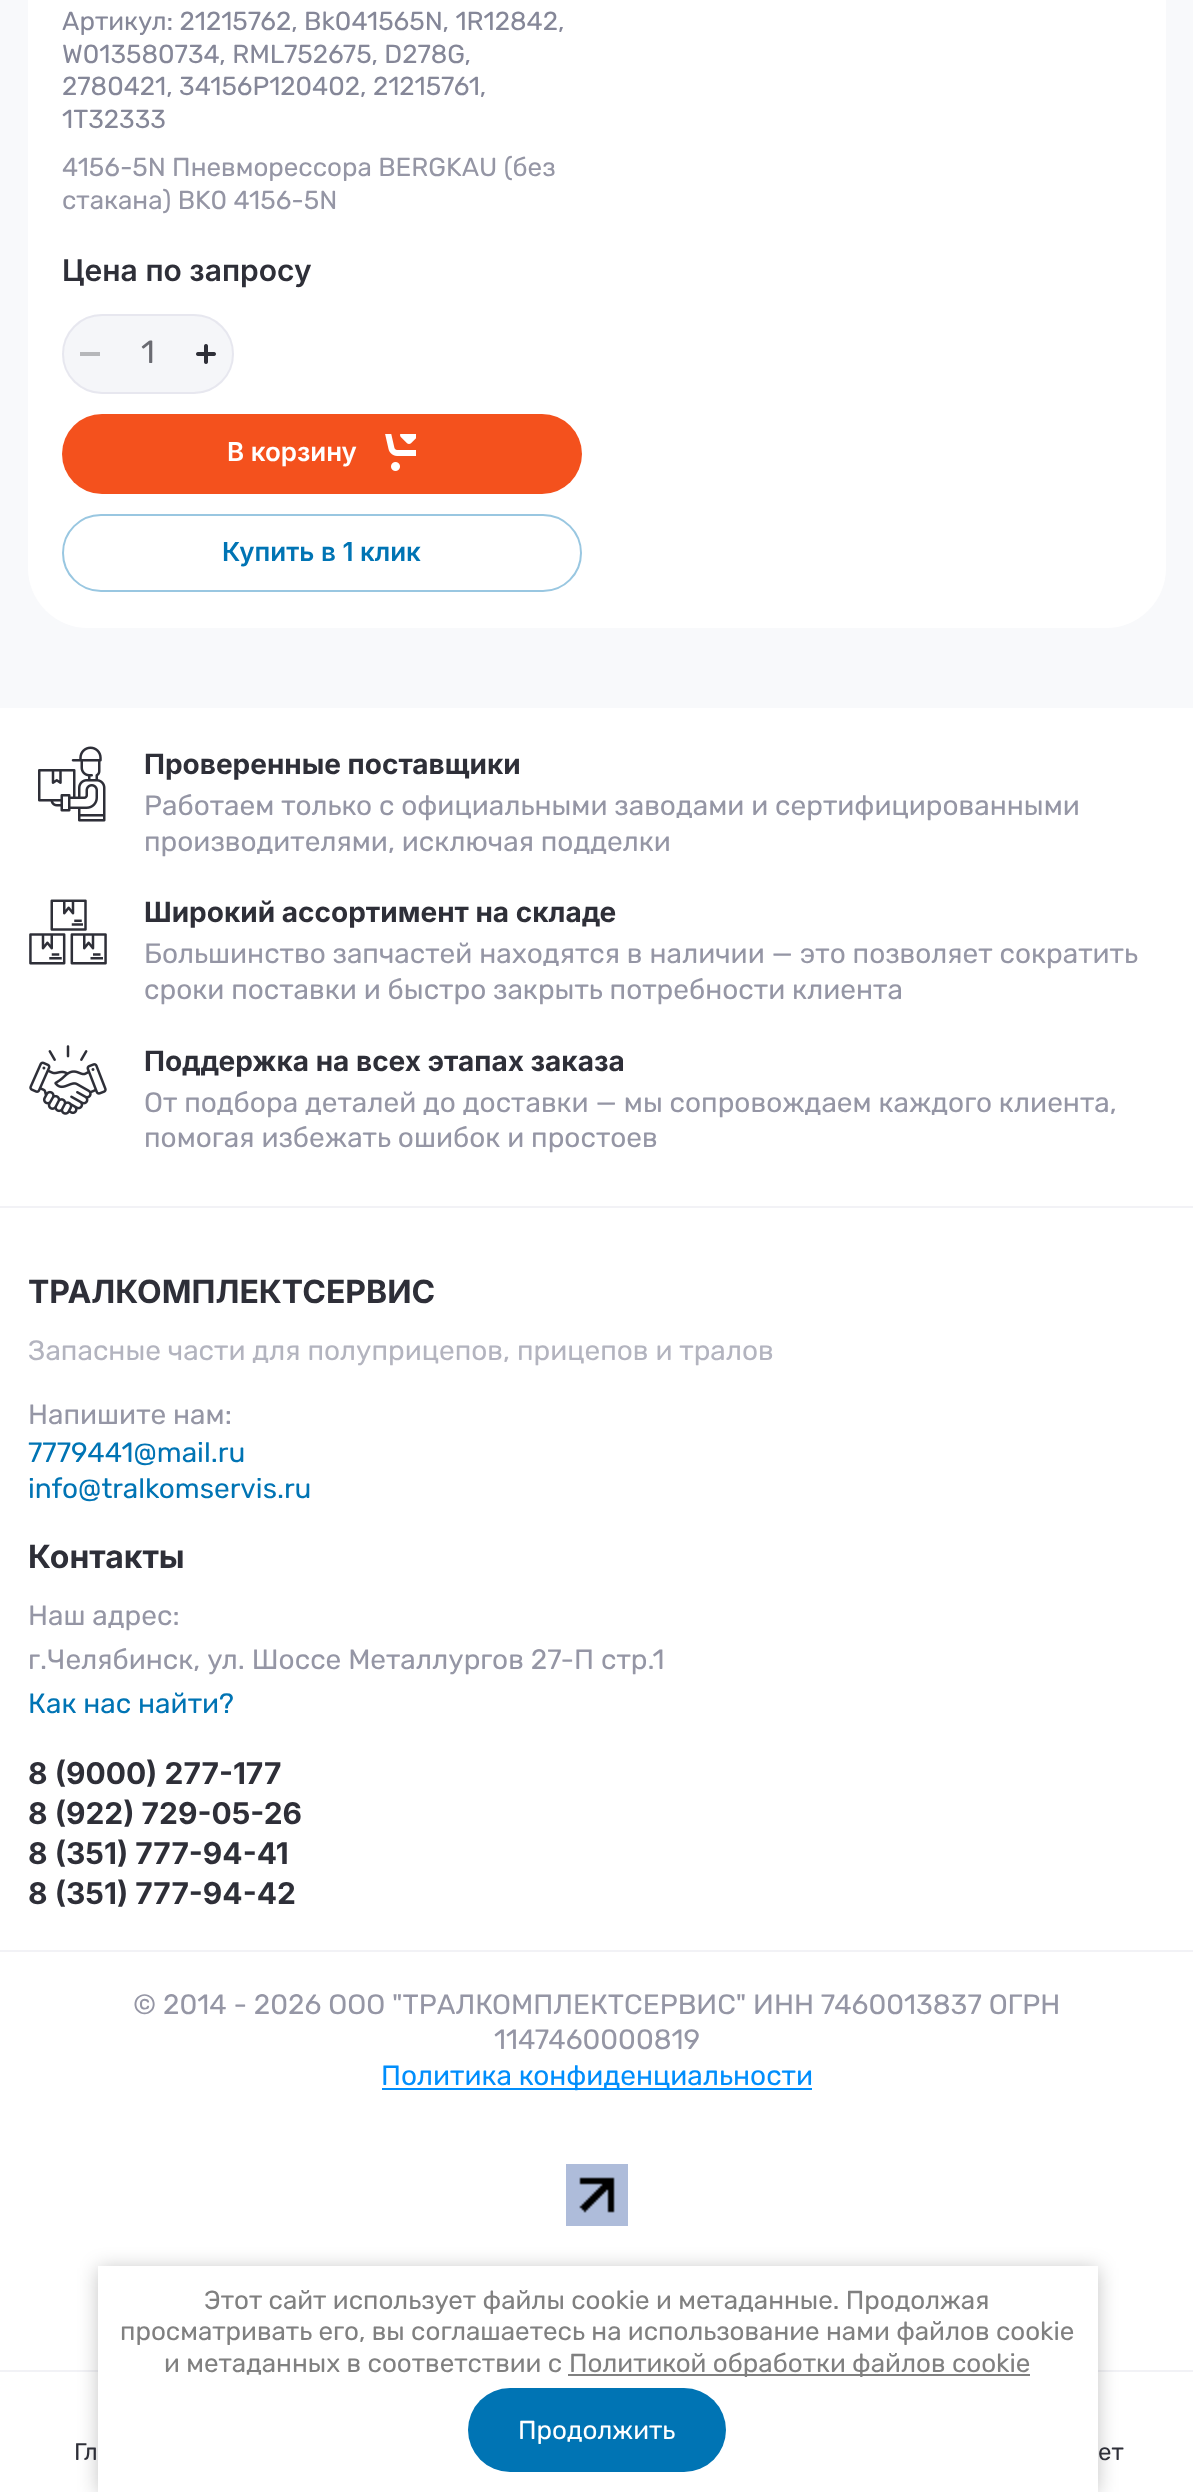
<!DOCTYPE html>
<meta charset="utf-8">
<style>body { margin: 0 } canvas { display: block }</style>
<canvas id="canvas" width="1193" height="2492"></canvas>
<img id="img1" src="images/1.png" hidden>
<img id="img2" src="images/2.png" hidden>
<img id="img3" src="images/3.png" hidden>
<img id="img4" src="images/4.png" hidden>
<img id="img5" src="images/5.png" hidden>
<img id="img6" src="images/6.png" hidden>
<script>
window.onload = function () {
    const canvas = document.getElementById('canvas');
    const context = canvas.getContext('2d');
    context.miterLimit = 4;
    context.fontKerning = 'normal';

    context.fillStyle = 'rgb(248, 249, 251)';
    context.fillRect(0, 0, 1193, 2492);
    context.fillStyle = 'rgb(255, 255, 255)';
    context.beginPath();
    context.roundRect(28, -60, 1138, 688, 60);
    context.fill();
    context.fillStyle = 'rgb(245, 246, 249)';
    context.beginPath();
    context.roundRect(62, 314, 172, 80, 40);
    context.fill();
    context.beginPath();
    context.roundRect(63, 315, 170, 78, 39);
    context.strokeStyle = 'rgba(210, 211, 224, 0.4)';
    context.lineWidth = 2;
    context.stroke();
    context.fillStyle = 'rgb(182, 183, 186)';
    context.fillRect(80, 352, 20, 4);
    context.drawImage(document.getElementById('img1'), 196, 344, 20, 20);
    context.fillStyle = 'rgb(244, 81, 29)';
    context.beginPath();
    context.roundRect(62, 414, 520, 80, 40);
    context.fill();
    context.drawImage(document.getElementById('img2'), 385, 434, 31, 37);
    context.beginPath();
    context.roundRect(63, 515, 518, 76, 38);
    context.strokeStyle = 'rgb(153, 199, 225)';
    context.stroke();
    context.fillStyle = 'rgb(255, 255, 255)';
    context.fillRect(0, 708, 1193, 498);
    context.fillStyle = 'rgb(242, 242, 246)';
    context.fillRect(0, 1206, 1193, 2);
    context.drawImage(document.getElementById('img3'), 38, 746, 68, 76);
    context.drawImage(document.getElementById('img4'), 29, 899, 78, 66);
    context.drawImage(document.getElementById('img5'), 29, 1045, 78, 70);
    context.fillStyle = 'rgb(255, 255, 255)';
    context.fillRect(0, 1208, 1193, 742);
    context.fillRect(0, 1952, 1193, 418);
    context.fillStyle = 'rgb(242, 242, 246)';
    context.fillRect(0, 1950, 1193, 2);
    context.fillStyle = 'rgb(0, 142, 252)';
    context.fillRect(382, 2088, 430, 2);
    context.drawImage(document.getElementById('img6'), 566, 2164, 62, 62);
    context.fillStyle = 'rgb(255, 255, 255)';
    context.fillRect(0, 2372, 1193, 120);
    context.fillStyle = 'rgb(242, 242, 246)';
    context.fillRect(0, 2370, 1193, 2);
    context.fillStyle = 'rgba(0, 0, 0, 0.23)';
    context.filter = 'blur(10px)';
    context.beginPath();
    context.rect(98, 2268, 1000, 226);
    context.fill();
    context.filter = 'none';
    context.fillStyle = 'rgb(255, 255, 255)';
    context.fillRect(98, 2266, 1000, 226);
    context.fillStyle = 'rgb(128, 128, 128)';
    context.fillRect(568, 2374, 462, 2);
    context.fillStyle = 'rgb(0, 116, 180)';
    context.beginPath();
    context.roundRect(468, 2388, 258, 84, 42);
    context.fill();
    context.font = '26px Rubik';
    context.fillStyle = 'rgb(133, 135, 152)';
    context.fillText('Артикул: 21215762, Bk041565N, 1R12842,', 62, 30);
    context.fillText('W013580734, RML752675, D278G,', 62, 63);
    context.fillText('2780421, 34156P120402, 21215761,', 62, 95);
    context.fillText('1T32333', 62, 128);
    context.fillStyle = 'rgb(149, 150, 165)';
    context.fillText('4156-5N Пневморессора BERGKAU (без', 62, 176);
    context.fillText('стакана) BK0 4156-5N', 62, 209);
    context.font = '600 30px Inter';
    context.fillStyle = 'rgb(46, 47, 56)';
    context.fillText('Цена по запросу', 62, 281);
    context.font = '32px Rubik';
    context.fillStyle = 'rgb(106, 107, 114)';
    context.fillText('1', 141, 363);
    context.font = '600 26px Inter';
    context.fillStyle = 'rgb(255, 255, 255)';
    context.fillText('В корзину', 227, 461);
    context.fillStyle = 'rgb(0, 116, 180)';
    context.fillText('Купить в 1 клик', 222, 561);
    context.font = 'bold 28px Inter';
    context.fillStyle = 'rgb(46, 47, 56)';
    context.fillText('Проверенные поставщики', 144, 774);
    context.font = '28px Rubik';
    context.fillStyle = 'rgb(149, 150, 165)';
    context.fillText('Работаем только с официальными заводами и сертифицированными', 144, 815);
    context.fillText('производителями, исключая подделки', 144, 851);
    context.font = 'bold 28px Inter';
    context.fillStyle = 'rgb(46, 47, 56)';
    context.fillText('Широкий ассортимент на складе', 144, 922);
    context.font = '28px Rubik';
    context.fillStyle = 'rgb(149, 150, 165)';
    context.fillText('Большинство запчастей находятся в наличии — это позволяет сократить', 144, 963);
    context.fillText('сроки поставки и быстро закрыть потребности клиента', 144, 999);
    context.font = 'bold 28px Inter';
    context.fillStyle = 'rgb(46, 47, 56)';
    context.fillText('Поддержка на всех этапах заказа', 144, 1071);
    context.font = '28px Rubik';
    context.fillStyle = 'rgb(149, 150, 165)';
    context.fillText('От подбора деталей до доставки — мы сопровождаем каждого клиента,', 144, 1112);
    context.fillText('помогая избежать ошибок и простоев', 144, 1147);
    context.font = 'bold 32px Inter';
    context.fillStyle = 'rgb(46, 47, 56)';
    context.fillText('ТРАЛКОМПЛЕКТСЕРВИС', 28, 1303);
    context.font = '28px Rubik';
    context.fillStyle = 'rgb(179, 180, 191)';
    context.fillText('Запасные части для полуприцепов, прицепов и тралов', 28, 1360);
    context.fillStyle = 'rgb(149, 150, 165)';
    context.fillText('Напишите нам:', 28, 1424);
    context.fillStyle = 'rgb(0, 116, 180)';
    context.fillText('7779441@mail.ru', 28, 1462);
    context.fillText('info@tralkomservis.ru', 28, 1498);
    context.font = 'bold 32px Inter';
    context.fillStyle = 'rgb(46, 47, 56)';
    context.fillText('Контакты', 28, 1568);
    context.font = '28px Rubik';
    context.fillStyle = 'rgb(149, 150, 165)';
    context.fillText('Наш адрес:', 28, 1625);
    context.fillText('г.Челябинск, ул. Шоссе Металлургов 27-П стр.1', 28, 1669);
    context.fillStyle = 'rgb(0, 116, 180)';
    context.fillText('Как нас найти?', 28, 1713);
    context.font = 'bold 30px Inter';
    context.fillStyle = 'rgb(46, 47, 56)';
    context.fillText('8 (9000) 277-177', 28, 1784);
    context.fillText('8 (922) 729-05-26', 28, 1824);
    context.fillText('8 (351) 777-94-41', 28, 1864);
    context.fillText('8 (351) 777-94-42', 28, 1904);
    context.font = '28px Rubik';
    context.fillStyle = 'rgb(149, 150, 165)';
    context.fillText('© 2014 - 2026 ООО "ТРАЛКОМПЛЕКТСЕРВИС" ИНН 7460013837 ОГРН', 133, 2014);
    context.fillText('1147460000819', 494, 2049);
    context.fillStyle = 'rgb(0, 142, 252)';
    context.fillText('Политика конфиденциальности', 381, 2085);
    context.font = '26px Rubik';
    context.fillStyle = 'rgb(128, 128, 128)';
    context.fillText('Этот сайт использует файлы cookie и метаданные. Продолжая', 204, 2309);
    context.fillText('просматривать его, вы соглашаетесь на использование нами файлов cookie', 120, 2340);
    context.fillText('и метаданных в соответствии с', 164, 2372);
    context.fillText('Политикой обработки файлов cookie', 569, 2372);
    context.fillStyle = 'rgb(255, 255, 255)';
    context.fillText('Продолжить', 518, 2439);
    context.font = '24px Rubik';
    context.fillStyle = 'rgb(46, 47, 56)';
    context.fillText('Гл', 74, 2460);
    context.fillText('ет', 1098, 2460);
};
</script>
